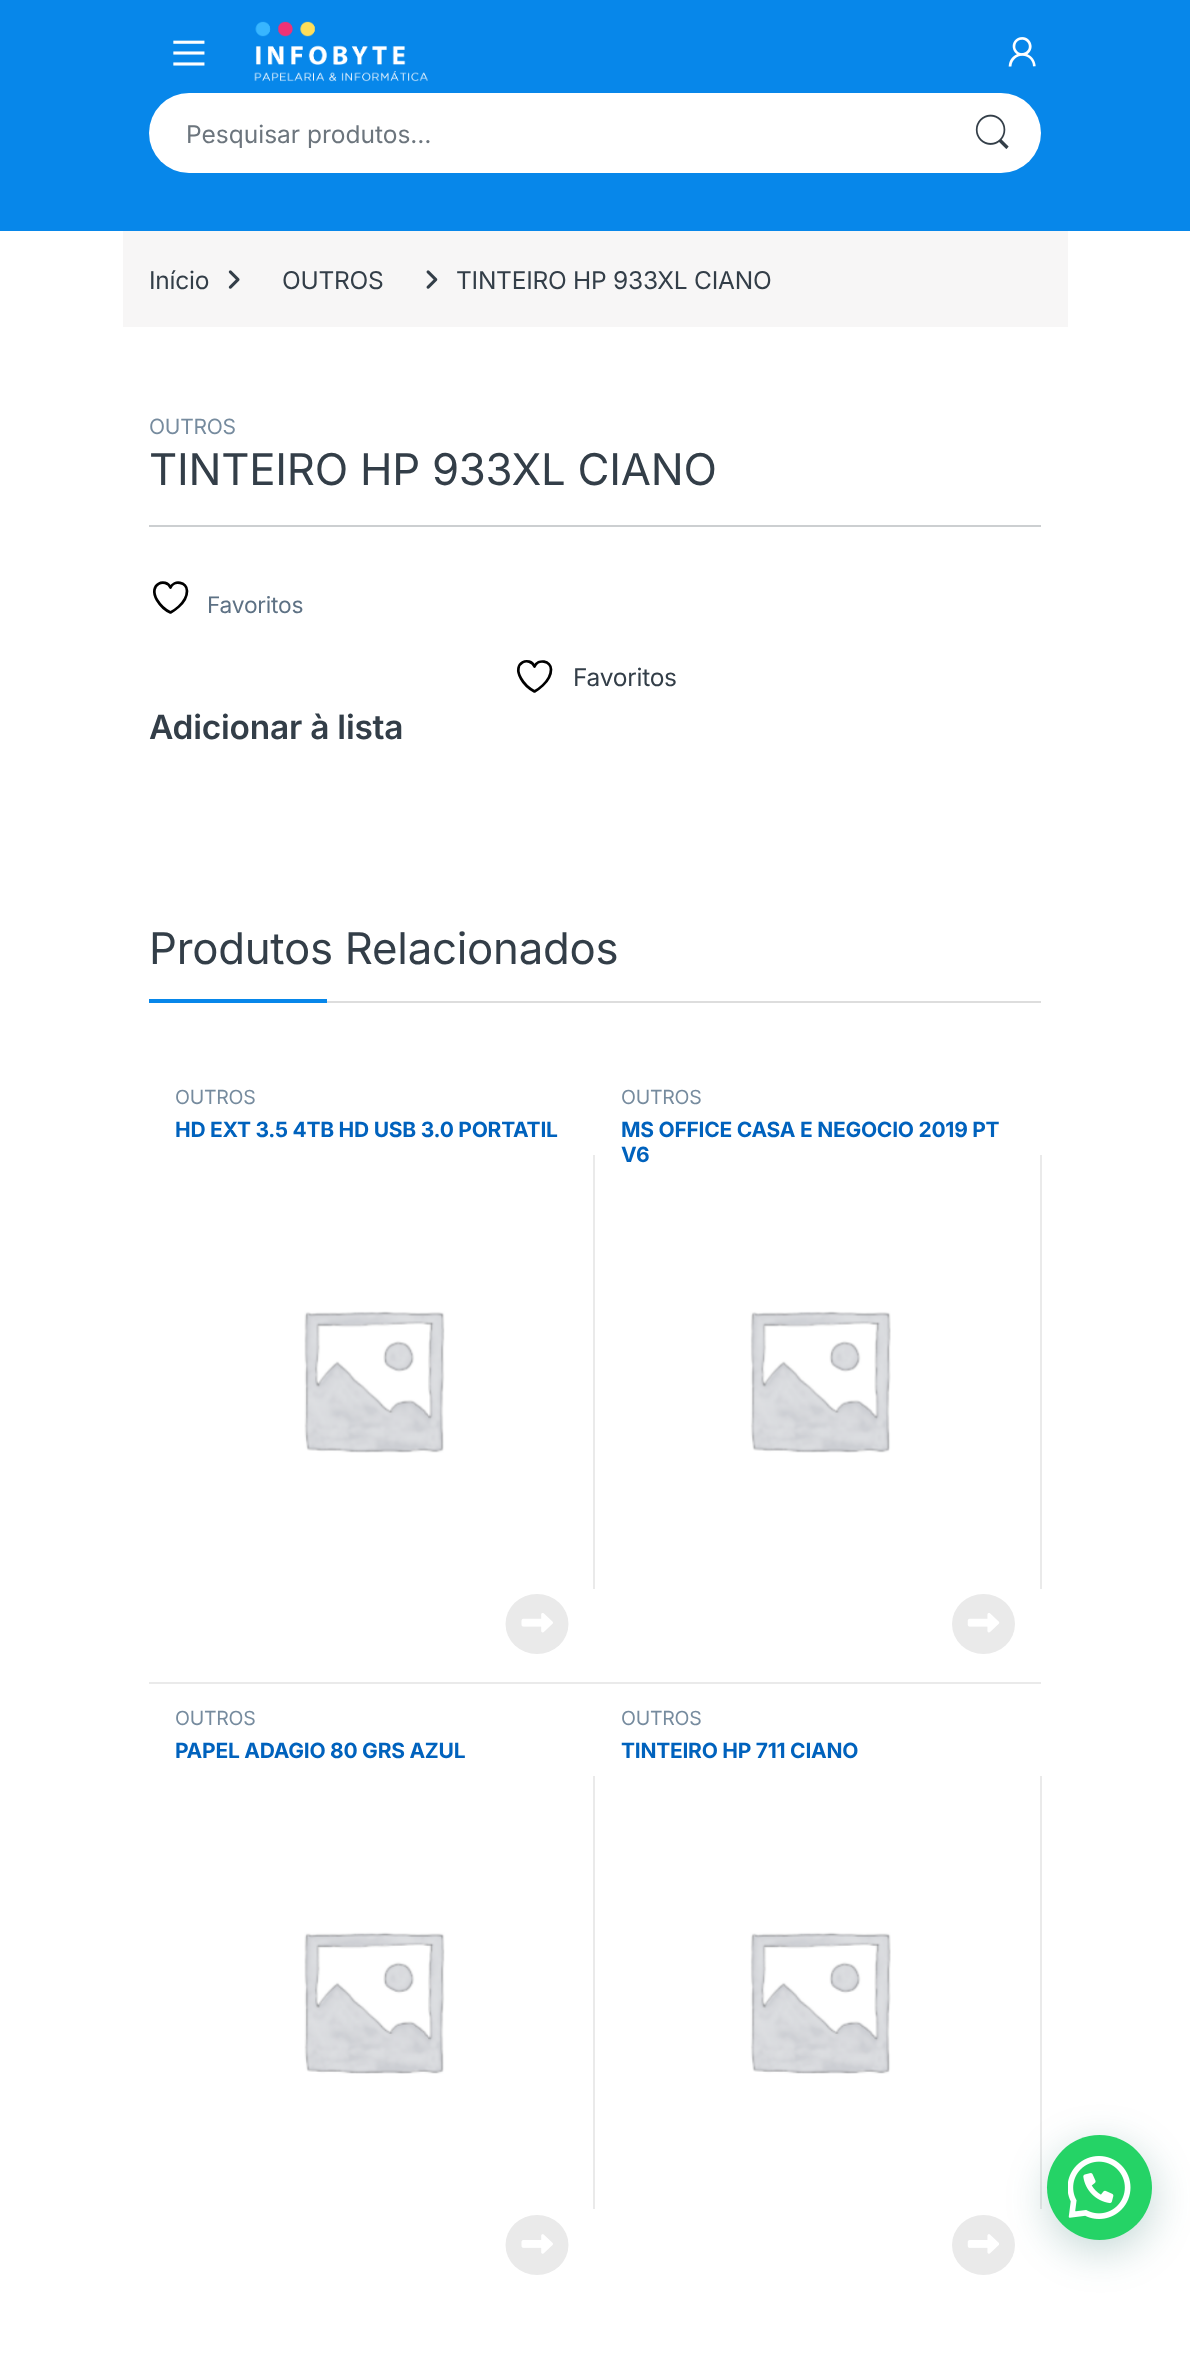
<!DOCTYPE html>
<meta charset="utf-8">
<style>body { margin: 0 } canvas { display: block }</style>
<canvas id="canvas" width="1190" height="2380"></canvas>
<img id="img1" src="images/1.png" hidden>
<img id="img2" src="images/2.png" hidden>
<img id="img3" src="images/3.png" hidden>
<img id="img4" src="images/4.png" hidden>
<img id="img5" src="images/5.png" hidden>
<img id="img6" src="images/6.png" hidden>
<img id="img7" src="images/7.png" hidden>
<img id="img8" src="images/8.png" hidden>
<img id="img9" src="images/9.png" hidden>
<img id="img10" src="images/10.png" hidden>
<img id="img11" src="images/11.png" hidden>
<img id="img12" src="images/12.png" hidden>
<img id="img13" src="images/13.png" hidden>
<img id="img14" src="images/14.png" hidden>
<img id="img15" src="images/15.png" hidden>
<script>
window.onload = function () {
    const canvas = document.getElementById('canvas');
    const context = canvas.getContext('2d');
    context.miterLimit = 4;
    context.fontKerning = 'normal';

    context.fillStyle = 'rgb(255, 255, 255)';
    context.fillRect(0, 0, 1190, 2380);
    context.fillStyle = 'rgb(7, 135, 234)';
    context.fillRect(0, 0, 1190, 231);
    context.drawImage(document.getElementById('img1'), 173, 40, 32, 26);
    context.drawImage(document.getElementById('img2'), 254, 21, 174, 61);
    context.drawImage(document.getElementById('img3'), 1008, 37, 28, 30);
    context.fillStyle = 'rgb(255, 255, 255)';
    context.beginPath();
    context.roundRect(149, 93, 892, 80, 40);
    context.fill();
    context.drawImage(document.getElementById('img4'), 975, 114, 34, 35);
    context.fillStyle = 'rgb(247, 246, 246)';
    context.fillRect(123, 231, 945, 96);
    context.drawImage(document.getElementById('img5'), 228, 270, 12, 19);
    context.drawImage(document.getElementById('img6'), 426, 270, 12, 19);
    context.fillStyle = 'rgb(204, 207, 209)';
    context.fillRect(149, 525, 892, 2);
    context.beginPath();
    context.moveTo(187, 591);
    context.bezierCurveTo(187, 582, 174, 579.5, 170.5, 587.5);
    context.bezierCurveTo(166, 577.5, 147.5, 583.5, 157, 600);
    context.bezierCurveTo(160, 605, 165, 610, 170.5, 612.5);
    context.bezierCurveTo(170.5, 612.5, 187, 604, 187, 591);
    context.closePath();
    context.strokeStyle = 'rgb(0, 0, 0)';
    context.lineWidth = 2.7;
    context.lineCap = 'round';
    context.lineJoin = 'round';
    context.stroke();
    context.beginPath();
    context.moveTo(551, 669.5);
    context.bezierCurveTo(551, 660.5, 538, 658.5, 534.5, 666.5);
    context.bezierCurveTo(530, 656, 511.5, 662, 521, 678.5);
    context.bezierCurveTo(524, 684, 529, 688.5, 534.5, 691.5);
    context.bezierCurveTo(534.5, 691.5, 551, 682.5, 551, 669.5);
    context.closePath();
    context.stroke();
    context.fillStyle = 'rgb(221, 221, 221)';
    context.fillRect(327, 1001, 714, 2);
    context.fillStyle = 'rgb(7, 135, 234)';
    context.fillRect(149, 999, 178, 4);
    context.fillStyle = 'rgb(234, 234, 234)';
    context.fillRect(149, 1682, 892, 2);
    context.drawImage(document.getElementById('img7'), 304, 1311, 141, 142);
    context.beginPath();
    context.ellipse(537, 1624, 31.5, 30, 0, 0, 2 * Math.PI);
    context.fill();
    context.drawImage(document.getElementById('img8'), 521, 1613, 32, 20);
    context.fillRect(593, 1155, 2, 434);
    context.drawImage(document.getElementById('img9'), 750, 1311, 141, 142);
    context.beginPath();
    context.ellipse(983.5, 1624, 31.5, 30, 0, 0, 2 * Math.PI);
    context.fill();
    context.drawImage(document.getElementById('img10'), 967, 1613, 33, 20);
    context.fillRect(1040, 1155, 2, 434);
    context.drawImage(document.getElementById('img11'), 304, 1932, 141, 142);
    context.beginPath();
    context.ellipse(537, 2245, 31.5, 30, 0, 0, 2 * Math.PI);
    context.fill();
    context.drawImage(document.getElementById('img12'), 521, 2234, 32, 20);
    context.fillRect(593, 1776, 2, 433);
    context.drawImage(document.getElementById('img13'), 750, 1932, 141, 142);
    context.beginPath();
    context.ellipse(983.5, 2245, 31.5, 30, 0, 0, 2 * Math.PI);
    context.fill();
    context.drawImage(document.getElementById('img14'), 967, 2234, 32, 20);
    context.fillRect(1040, 1776, 2, 433);
    context.fillStyle = 'rgba(7, 94, 84, 0.24)';
    context.filter = 'blur(21px)';
    context.beginPath();
    context.roundRect(1048, 2146, 105, 105, 52.5);
    context.fill();
    context.filter = 'none';
    context.fillStyle = 'rgb(37, 211, 102)';
    context.beginPath();
    context.arc(1099.5, 2187.5, 52.5, 0, 2 * Math.PI);
    context.fill();
    context.drawImage(document.getElementById('img15'), 1068, 2156, 63, 63);
    context.font = '24.5px Inter';
    context.fillStyle = 'rgb(108, 117, 125)';
    context.fillText('Pesquisar produtos…', 186, 143);
    context.letterSpacing = '-0.25px';
    context.fillStyle = 'rgb(51, 62, 72)';
    context.fillText('Início', 149, 289);
    context.fillText('OUTROS', 282, 289);
    context.fillText('TINTEIRO HP 933XL CIANO', 456, 289);
    context.font = '21px Inter';
    context.fillStyle = 'rgb(118, 139, 158)';
    context.fillText('OUTROS', 149, 434);
    context.font = '43.75px Inter';
    context.fillStyle = 'rgb(51, 62, 72)';
    context.fillText('TINTEIRO HP 933XL CIANO', 149, 485);
    context.font = '22.75px Inter';
    context.fillStyle = 'rgb(93, 113, 132)';
    context.fillText('Favoritos', 207, 613);
    context.font = '24.5px Inter';
    context.fillStyle = 'rgb(51, 62, 72)';
    context.fillText('Favoritos', 573, 686);
    context.font = '600 33.5px Inter';
    context.fillText('Adicionar à lista', 149, 739);
    context.font = '43.75px Inter';
    context.fillText('Produtos Relacionados', 149, 964);
    context.font = '19.5px Inter';
    context.fillStyle = 'rgb(118, 139, 158)';
    context.fillText('OUTROS', 175, 1104);
    context.font = 'bold 21px Inter';
    context.fillStyle = 'rgb(0, 98, 189)';
    context.fillText('HD EXT 3.5 4TB HD USB 3.0 PORTATIL', 175, 1137);
    context.font = '19.5px Inter';
    context.fillStyle = 'rgb(118, 139, 158)';
    context.fillText('OUTROS', 621, 1104);
    context.font = 'bold 21px Inter';
    context.fillStyle = 'rgb(0, 98, 189)';
    context.fillText('MS OFFICE CASA E NEGOCIO 2019 PT', 621, 1137);
    context.fillText('V6', 621, 1162);
    context.font = '19.5px Inter';
    context.fillStyle = 'rgb(118, 139, 158)';
    context.fillText('OUTROS', 175, 1725);
    context.font = 'bold 21px Inter';
    context.fillStyle = 'rgb(0, 98, 189)';
    context.fillText('PAPEL ADAGIO 80 GRS AZUL', 175, 1758);
    context.font = '19.5px Inter';
    context.fillStyle = 'rgb(118, 139, 158)';
    context.fillText('OUTROS', 621, 1725);
    context.font = 'bold 21px Inter';
    context.fillStyle = 'rgb(0, 98, 189)';
    context.fillText('TINTEIRO HP 711 CIANO', 621, 1758);
};
</script>
